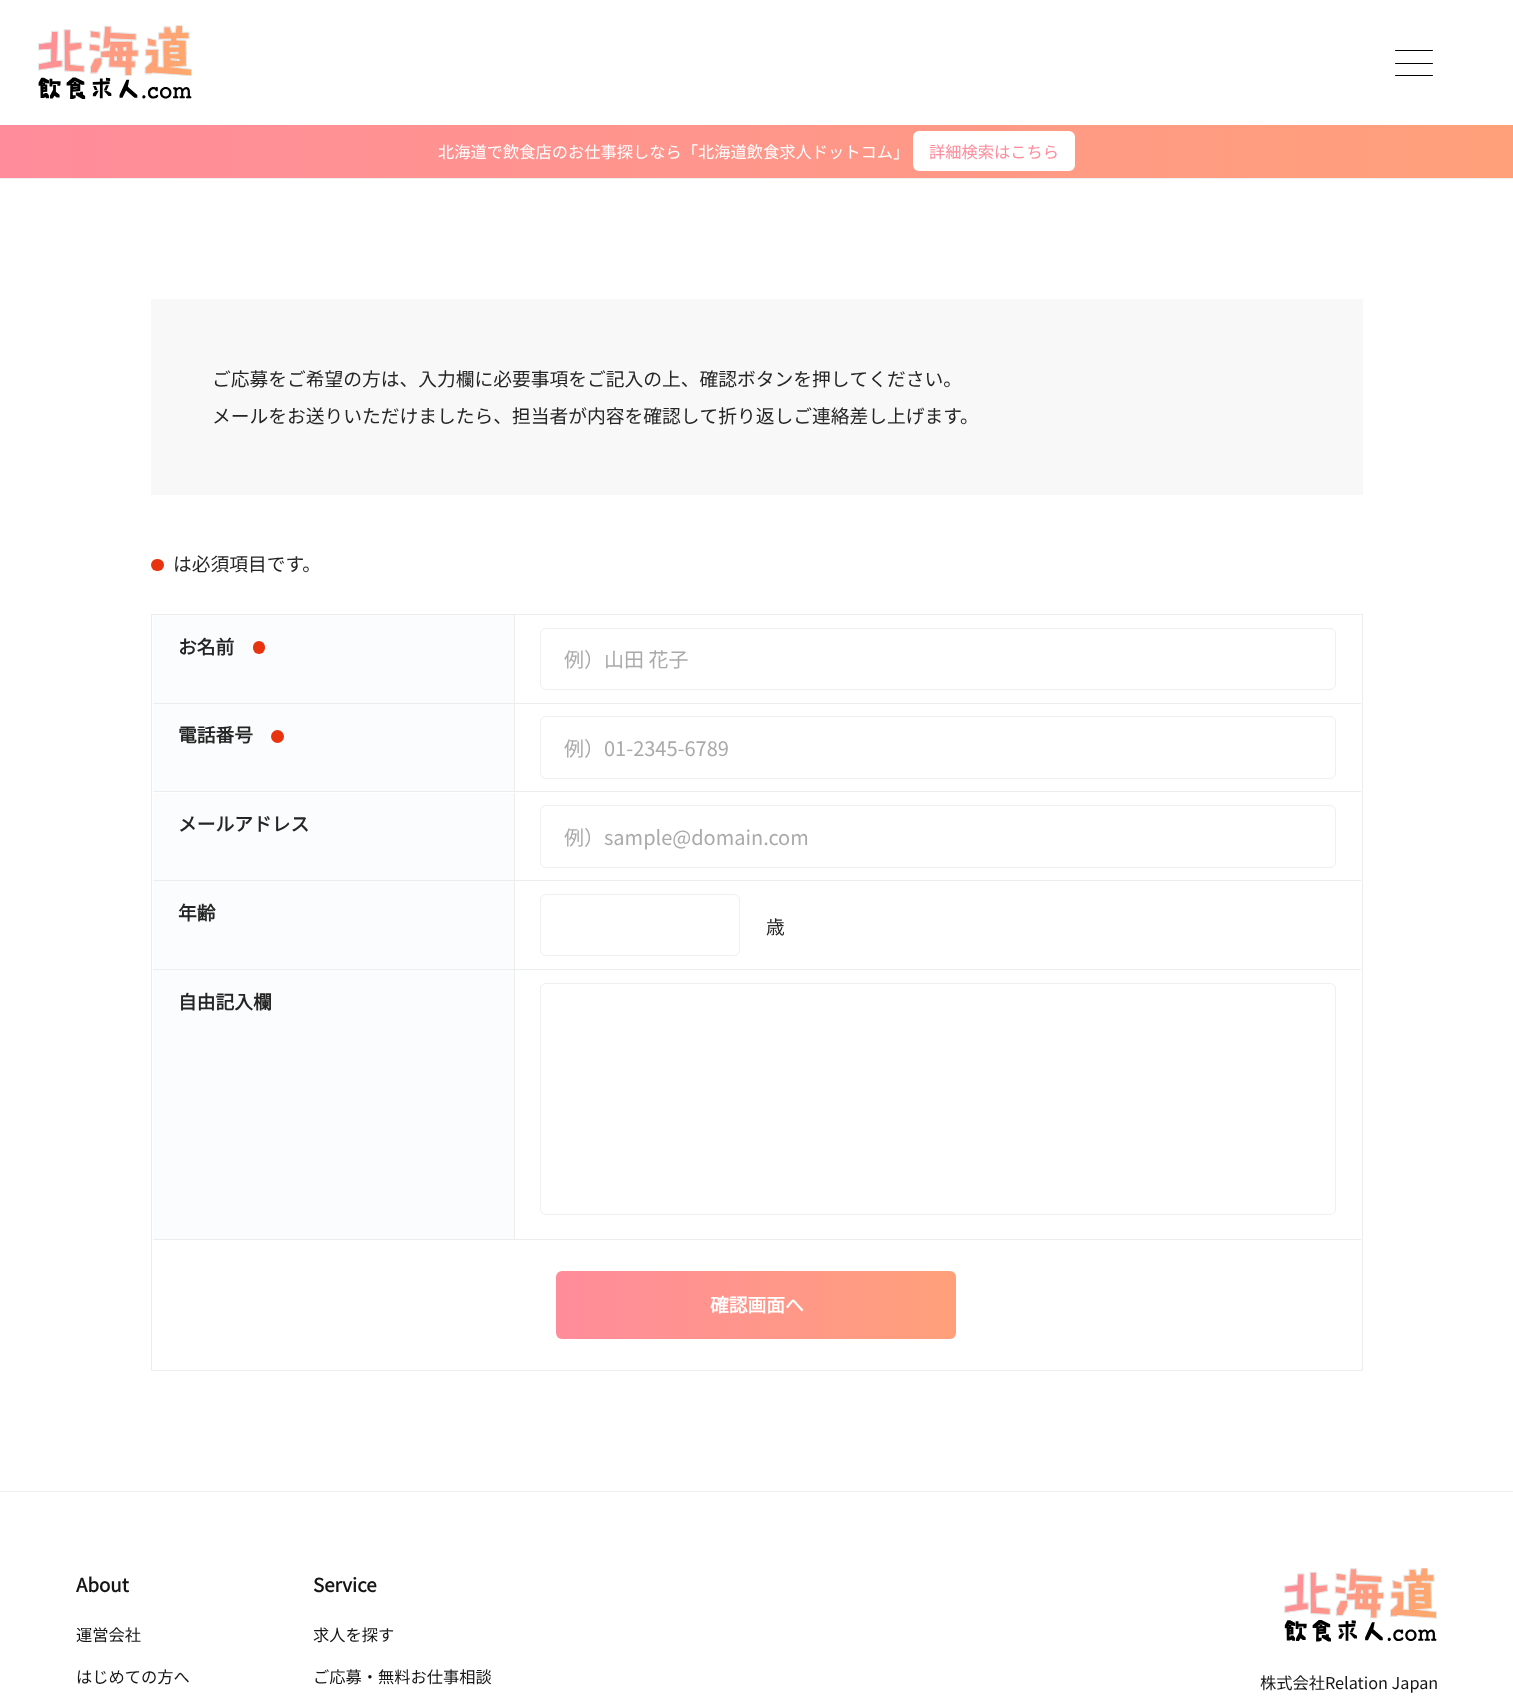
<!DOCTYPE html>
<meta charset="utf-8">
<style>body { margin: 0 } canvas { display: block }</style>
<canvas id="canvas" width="1513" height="1704"></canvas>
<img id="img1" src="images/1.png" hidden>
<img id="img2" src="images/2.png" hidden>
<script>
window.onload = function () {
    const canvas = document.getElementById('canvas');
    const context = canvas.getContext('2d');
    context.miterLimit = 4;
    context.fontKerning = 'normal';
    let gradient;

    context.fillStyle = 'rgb(255, 255, 255)';
    context.fillRect(0, 0, 1513, 1704);
    context.drawImage(document.getElementById('img1'), 38, 25, 154, 74);
    context.fillStyle = 'rgb(0, 0, 0)';
    context.beginPath();
    context.roundRect(1395, 50, 38, 1, 0.5);
    context.fill();
    context.beginPath();
    context.roundRect(1395, 63, 38, 1, 0.5);
    context.fill();
    context.beginPath();
    context.roundRect(1395, 75, 38, 1, 0.5);
    context.fill();
    gradient = context.createLinearGradient(0, 151, 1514, 151);
    gradient.addColorStop(0, 'rgb(255, 140, 155)');
    gradient.addColorStop(1, 'rgb(255, 160, 122)');
    context.fillStyle = gradient;
    context.fillRect(0, 125, 1513, 53);
    context.fillStyle = 'rgb(255, 255, 255)';
    context.beginPath();
    context.roundRect(913, 131, 162, 40, 6);
    context.fill();
    context.fillStyle = 'rgb(239, 239, 239)';
    context.fillRect(0, 1491, 1513, 1);
    context.fillRect(0, 178, 1513, 1);
    context.fillStyle = 'rgb(248, 248, 248)';
    context.fillRect(151, 299, 1212, 196);
    context.fillStyle = 'rgb(232, 51, 15)';
    context.beginPath();
    context.roundRect(151, 559, 13, 12, 6);
    context.fill();
    context.strokeStyle = 'rgb(235, 237, 239)';
    context.strokeRect(151.5, 614.5, 1211, 756);
    context.fillStyle = 'rgb(251, 252, 253)';
    context.fillRect(153, 615, 361, 88);
    context.fillStyle = 'rgb(235, 237, 239)';
    context.fillRect(514, 615, 1, 88);
    context.fillStyle = 'rgb(232, 51, 15)';
    context.beginPath();
    context.roundRect(253, 641, 12, 13, 6);
    context.fill();
    context.beginPath();
    context.roundRect(540.5, 628.5, 795, 61, 5.5);
    context.strokeStyle = 'rgb(239, 239, 239)';
    context.stroke();
    context.fillStyle = 'rgb(235, 237, 239)';
    context.fillRect(153, 703, 1208, 1);
    context.fillStyle = 'rgb(251, 252, 253)';
    context.fillRect(153, 704, 361, 87);
    context.fillStyle = 'rgb(235, 237, 239)';
    context.fillRect(514, 704, 1, 87);
    context.fillStyle = 'rgb(232, 51, 15)';
    context.beginPath();
    context.arc(277.5, 736.5, 6.5, 0, 2 * Math.PI);
    context.fill();
    context.beginPath();
    context.roundRect(540.5, 716.5, 795, 62, 5.5);
    context.stroke();
    context.fillStyle = 'rgb(235, 237, 239)';
    context.fillRect(153, 791, 1208, 1);
    context.fillStyle = 'rgb(251, 252, 253)';
    context.fillRect(153, 793, 361, 87);
    context.fillStyle = 'rgb(235, 237, 239)';
    context.fillRect(514, 793, 1, 87);
    context.beginPath();
    context.roundRect(540.5, 805.5, 795, 62, 5.5);
    context.stroke();
    context.fillRect(153, 880, 1208, 1);
    context.fillStyle = 'rgb(251, 252, 253)';
    context.fillRect(153, 881, 361, 88);
    context.fillStyle = 'rgb(235, 237, 239)';
    context.fillRect(514, 881, 1, 88);
    context.beginPath();
    context.roundRect(540.5, 894.5, 199, 61, 5.5);
    context.stroke();
    context.fillRect(153, 969, 1208, 1);
    context.fillStyle = 'rgb(251, 252, 253)';
    context.fillRect(153, 970, 361, 269);
    context.fillStyle = 'rgb(235, 237, 239)';
    context.fillRect(514, 970, 1, 269);
    context.beginPath();
    context.roundRect(540.5, 983.5, 795, 231, 5.5);
    context.stroke();
    context.fillRect(153, 1239, 1208, 1);
    gradient = context.createLinearGradient(556, 1305, 956, 1305);
    gradient.addColorStop(0, 'rgb(255, 140, 155)');
    gradient.addColorStop(1, 'rgb(255, 160, 122)');
    context.fillStyle = gradient;
    context.beginPath();
    context.roundRect(556, 1271, 400, 68, 6);
    context.fill();
    context.drawImage(document.getElementById('img2'), 1284, 1568, 153, 74);
    context.font = '100 16.25px Noto Sans JP';
    context.fillStyle = 'rgb(255, 255, 255)';
    context.fillText('北海道で飲食店のお仕事探しなら「北海道飲食求人ドットコム」', 438, 158);
    context.fillStyle = 'rgb(255, 140, 155)';
    context.fillText('詳細検索はこちら', 929, 158);
    context.font = '100 18.75px Noto Sans JP';
    context.fillStyle = 'rgb(37, 37, 37)';
    context.fillText('ご応募をご希望の方は、入力欄に必要事項をご記入の上、確認ボタンを押してください。', 212, 386);
    context.fillText('メールをお送りいただけましたら、担当者が内容を確認して折り返しご連絡差し上げます。', 212, 423);
    context.fillText('は必須項目です。', 173, 571);
    context.font = 'bold 18.75px Noto Sans JP';
    context.fillText('お名前', 178, 654);
    context.font = '100 20px Noto Sans JP';
    context.fillStyle = 'rgb(170, 170, 170)';
    context.fillText('例）山田 花子', 564, 667);
    context.font = 'bold 18.75px Noto Sans JP';
    context.fillStyle = 'rgb(37, 37, 37)';
    context.fillText('電話番号', 178, 742);
    context.font = '100 20px Noto Sans JP';
    context.fillStyle = 'rgb(170, 170, 170)';
    context.fillText('例）01-2345-6789', 564, 756);
    context.font = 'bold 18.75px Noto Sans JP';
    context.fillStyle = 'rgb(37, 37, 37)';
    context.fillText('メールアドレス', 178, 831);
    context.font = '100 20px Noto Sans JP';
    context.fillStyle = 'rgb(170, 170, 170)';
    context.fillText('例）sample@domain.com', 564, 845);
    context.font = 'bold 18.75px Noto Sans JP';
    context.fillStyle = 'rgb(37, 37, 37)';
    context.fillText('年齢', 178, 920);
    context.letterSpacing = '1px';
    context.font = '100 18.75px Noto Sans JP';
    context.fillText('歳', 766, 934);
    context.letterSpacing = '0px';
    context.font = 'bold 18.75px Noto Sans JP';
    context.fillText('自由記入欄', 178, 1009);
    context.fillStyle = 'rgb(255, 255, 255)';
    context.fillText('確認画面へ', 710, 1312);
    context.fillStyle = 'rgb(21, 21, 21)';
    context.fillText('About', 76, 1592);
    context.font = '100 16.25px Noto Sans JP';
    context.fillText('運営会社', 76, 1641);
    context.fillText('はじめての方へ', 76, 1683);
    context.font = 'bold 18.75px Noto Sans JP';
    context.fillText('Service', 313, 1592);
    context.font = '100 16.25px Noto Sans JP';
    context.fillText('求人を探す', 313, 1641);
    context.fillText('ご応募・無料お仕事相談', 313, 1683);
    context.fillText('株式会社Relation Japan', 1260, 1689);
};
</script>
